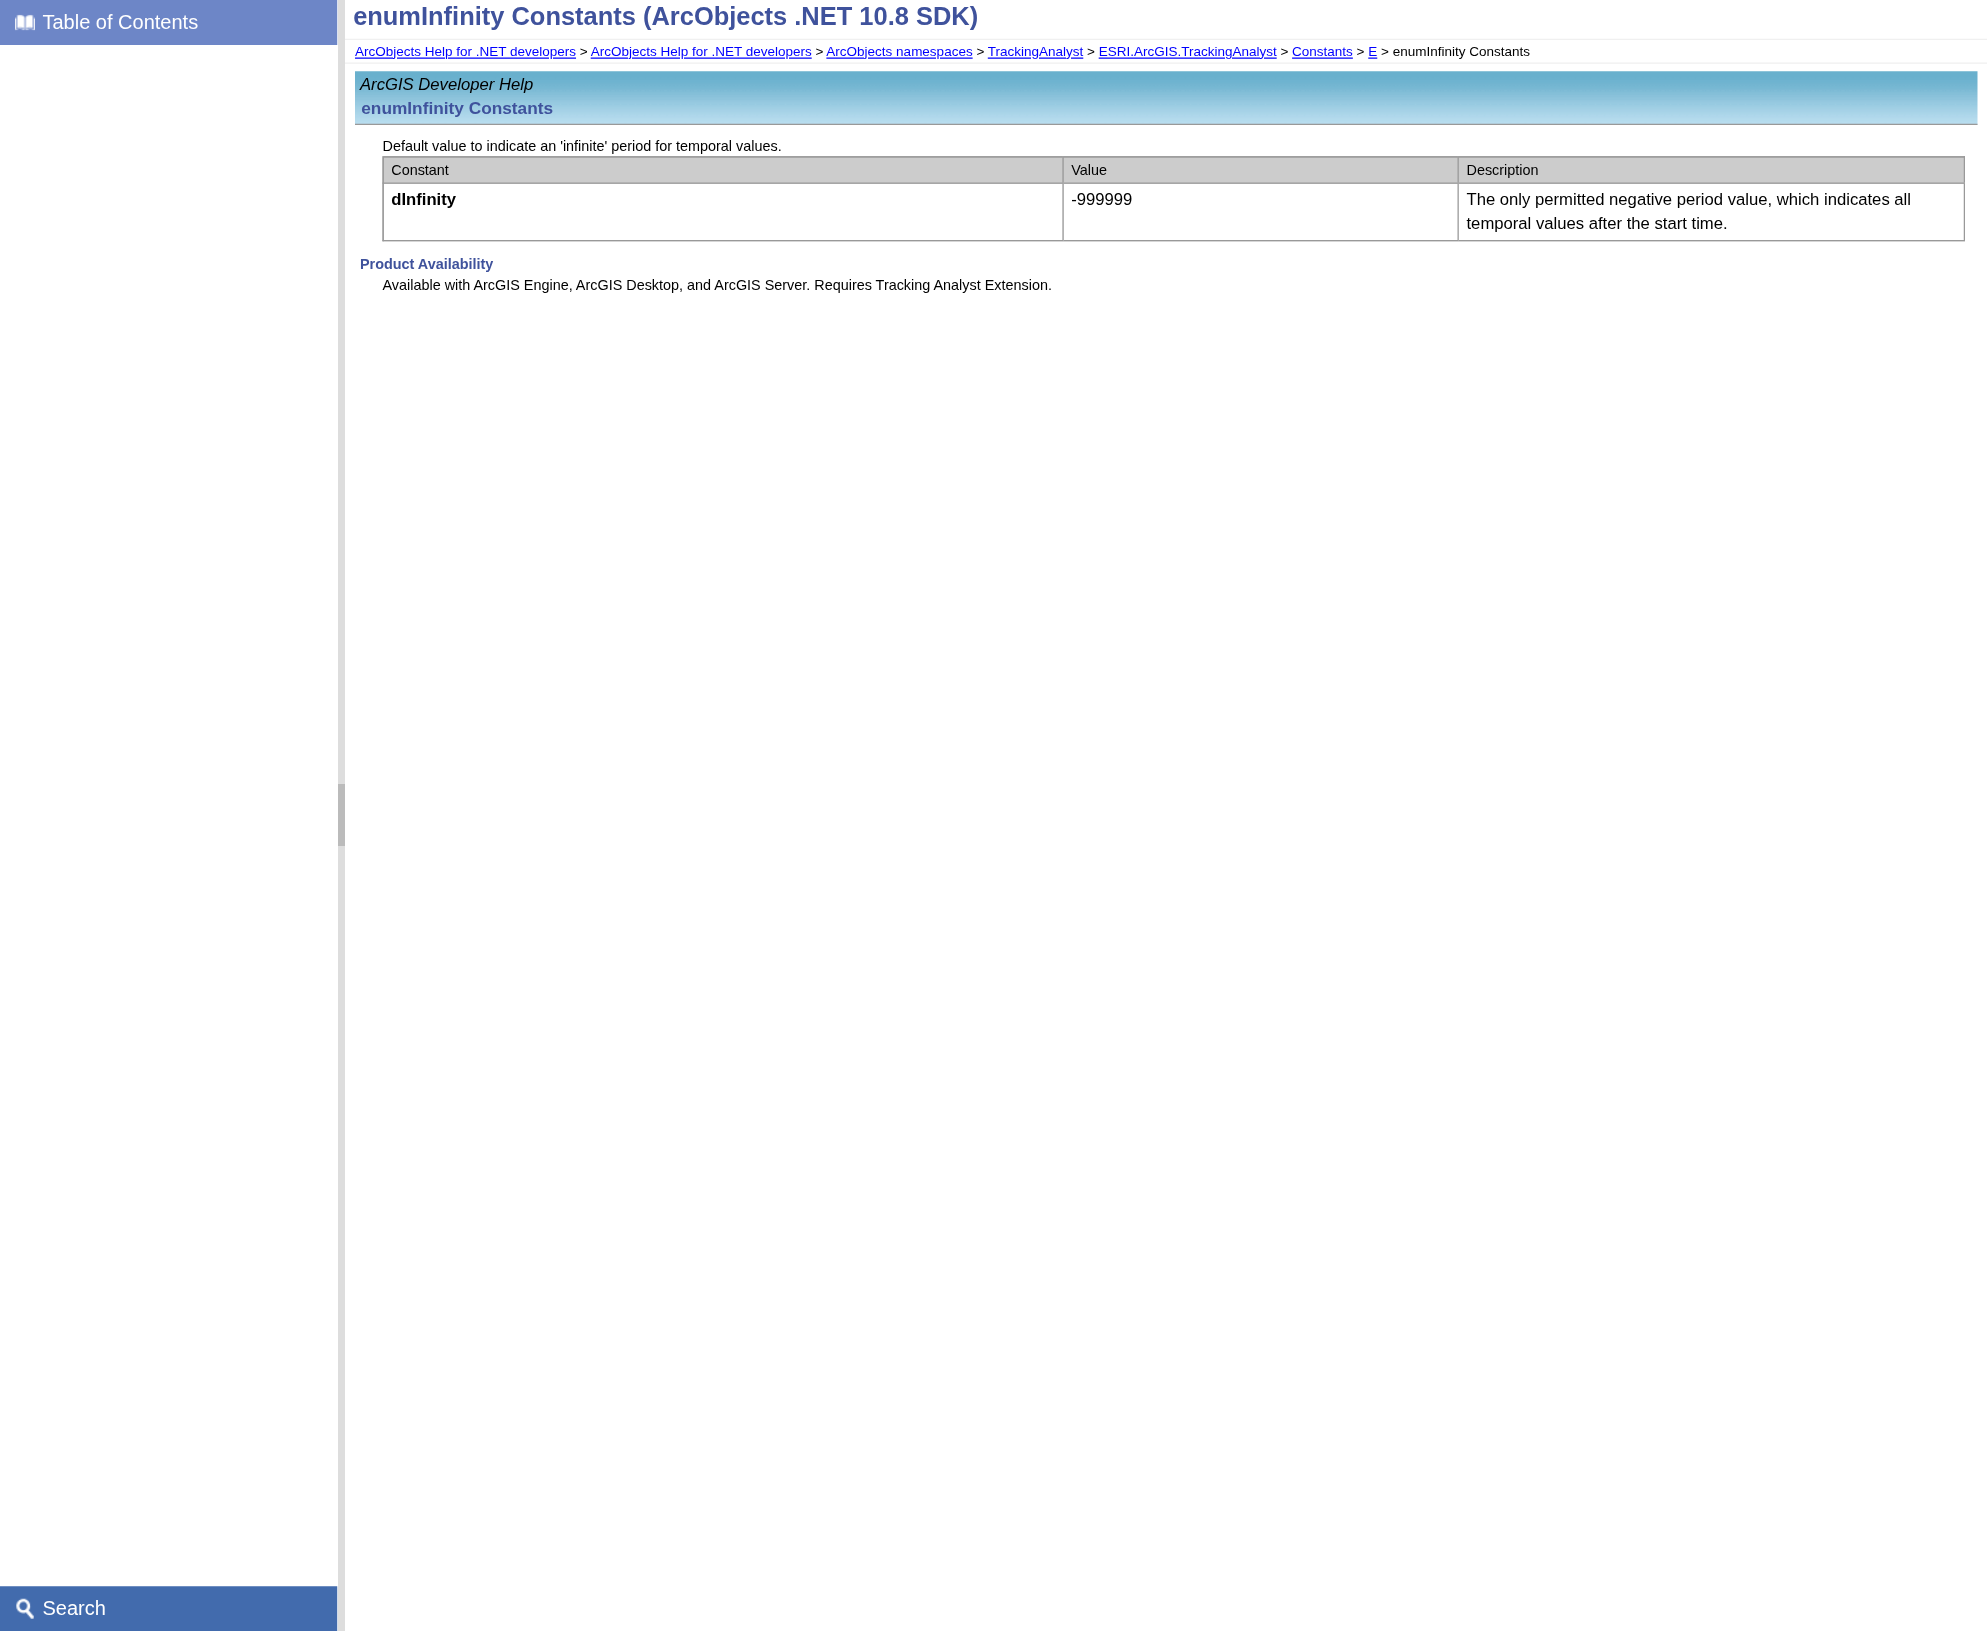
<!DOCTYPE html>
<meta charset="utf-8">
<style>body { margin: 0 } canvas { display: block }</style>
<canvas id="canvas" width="1987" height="1631"></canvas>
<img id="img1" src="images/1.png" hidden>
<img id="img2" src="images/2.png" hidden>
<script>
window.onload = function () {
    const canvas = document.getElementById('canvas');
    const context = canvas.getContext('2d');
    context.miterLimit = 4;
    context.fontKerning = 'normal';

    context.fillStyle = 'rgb(255, 255, 255)';
    context.fillRect(0, 0, 1987, 1631);
    context.drawImage(document.getElementById('img1'), 0, 0, 338, 1631);
    context.fillStyle = 'rgb(221, 221, 221)';
    context.fillRect(338, 0, 7, 1631);
    context.fillStyle = 'rgb(187, 187, 187)';
    context.fillRect(338, 784, 7, 62);
    context.drawImage(document.getElementById('img2'), 345, 6, 1642, 287);
};
</script>
